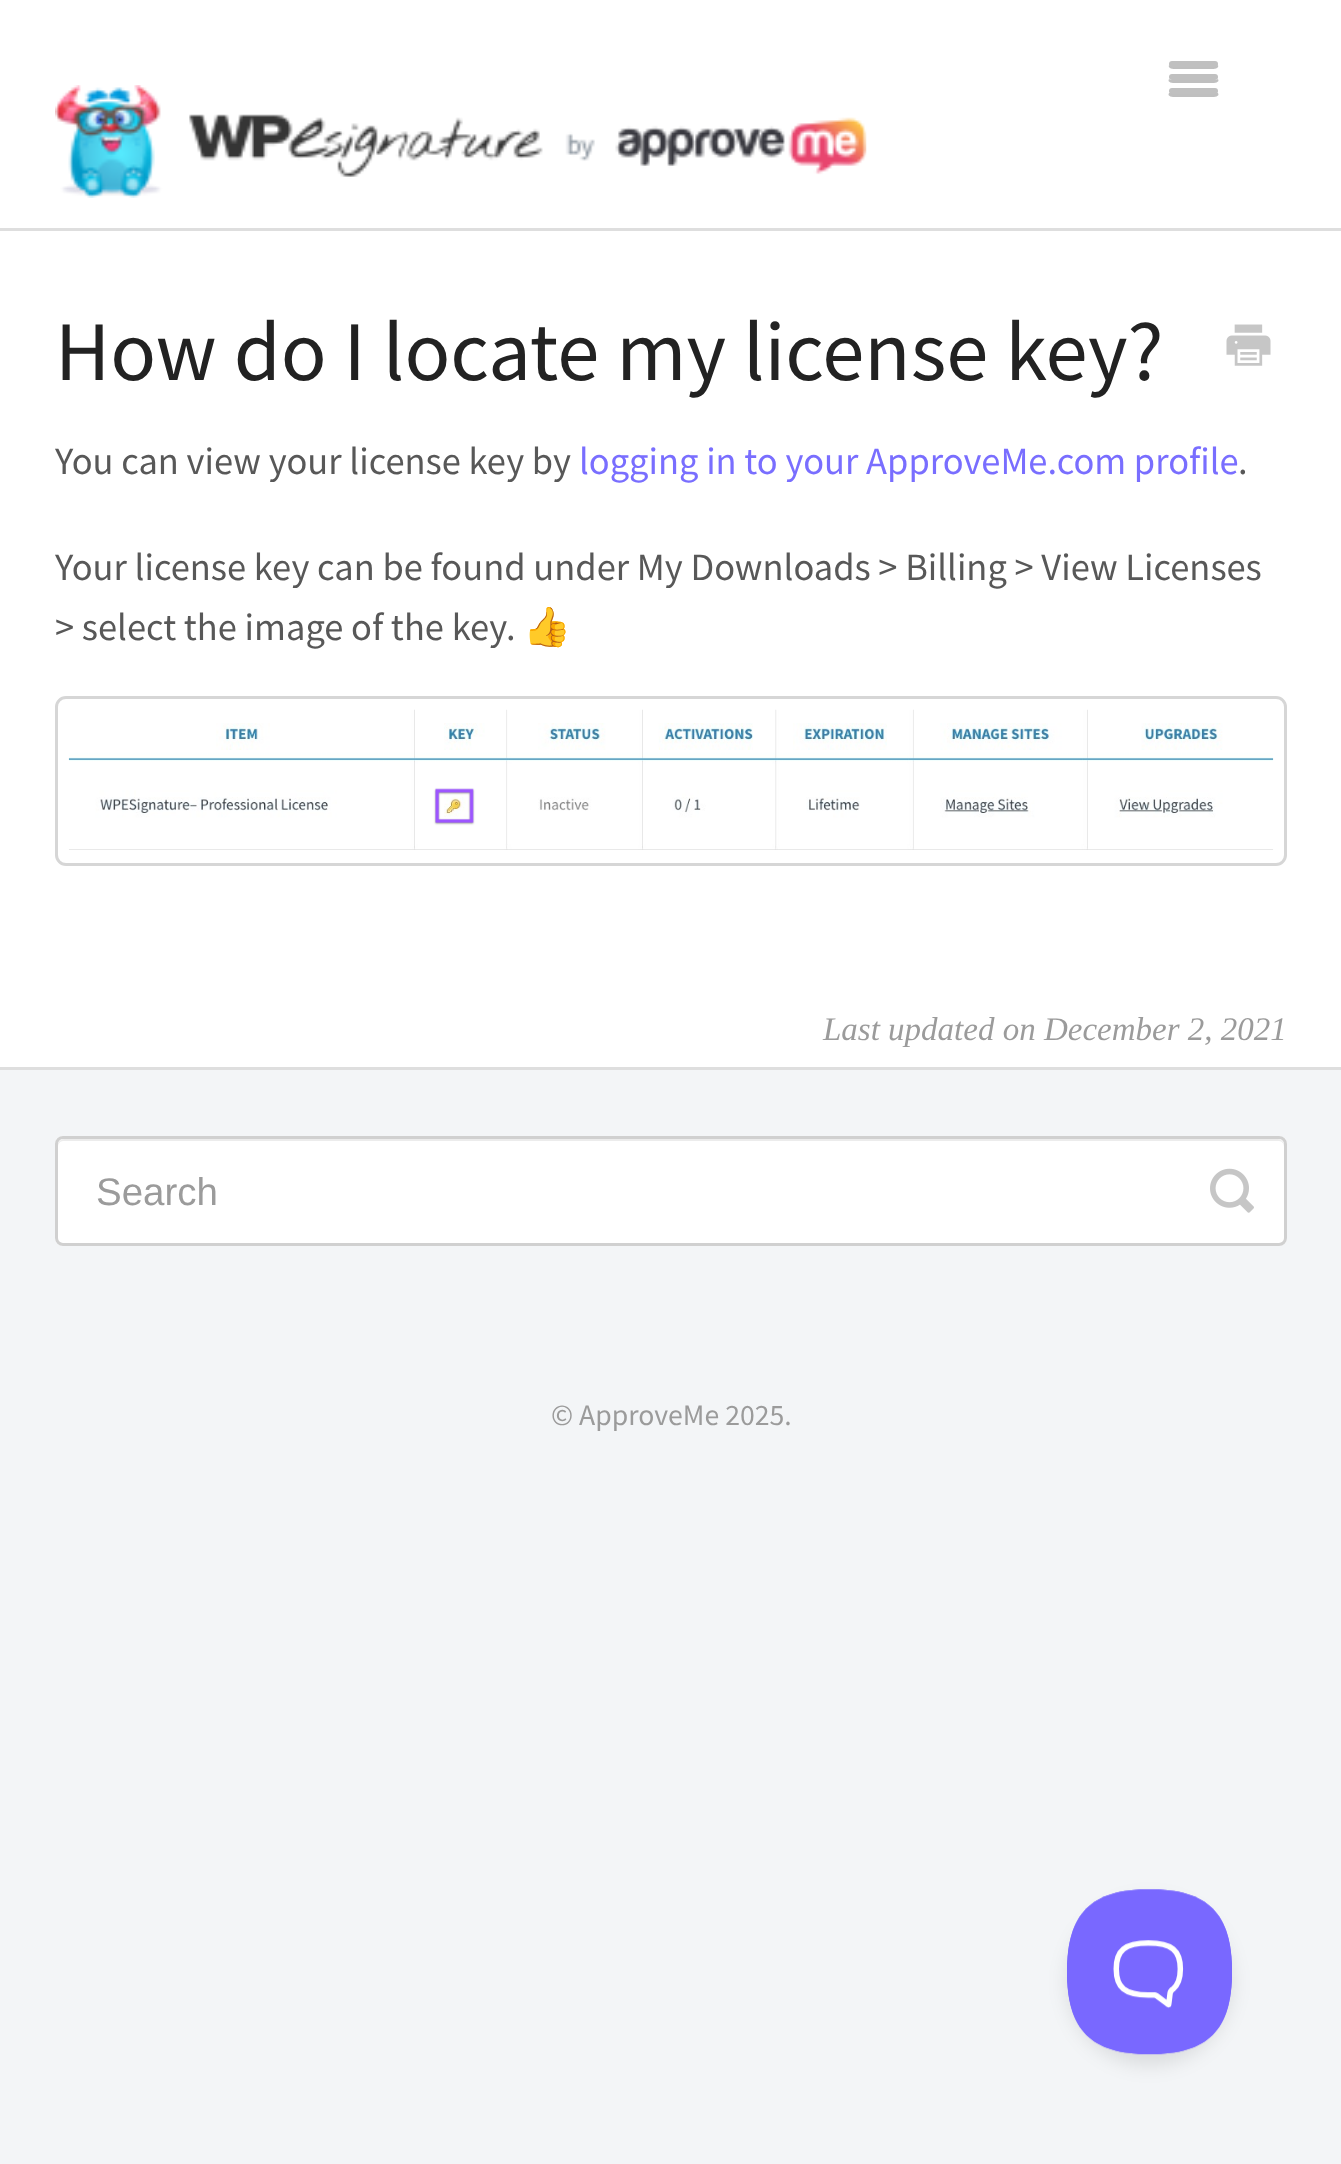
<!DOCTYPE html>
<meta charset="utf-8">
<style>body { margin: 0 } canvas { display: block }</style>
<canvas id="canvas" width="1341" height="2164"></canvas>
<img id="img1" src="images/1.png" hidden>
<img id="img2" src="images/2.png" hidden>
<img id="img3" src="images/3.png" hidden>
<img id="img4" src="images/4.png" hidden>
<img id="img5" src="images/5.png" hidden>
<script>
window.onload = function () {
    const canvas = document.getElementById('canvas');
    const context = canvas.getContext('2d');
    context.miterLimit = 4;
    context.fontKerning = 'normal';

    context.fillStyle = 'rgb(243, 245, 247)';
    context.fillRect(0, 0, 1341, 2164);
    context.fillStyle = 'rgb(255, 255, 255)';
    context.fillRect(0, 0, 1341, 228);
    context.fillStyle = 'rgb(191, 191, 191)';
    context.beginPath();
    context.moveTo(1169, 65);
    context.bezierCurveTo(1167, 70, 1178, 69, 1179, 69);
    context.lineTo(1208, 69);
    context.bezierCurveTo(1209, 69, 1220, 70, 1218, 65);
    context.lineTo(1216, 66);
    context.lineTo(1171, 66);
    context.closePath();
    context.fill();
    context.fillStyle = 'rgb(192, 192, 192)';
    context.beginPath();
    context.roundRect(1169, 61, 49, 6, 3);
    context.fill();
    context.fillStyle = 'rgb(191, 191, 191)';
    context.beginPath();
    context.moveTo(1169, 79);
    context.bezierCurveTo(1166, 84, 1178, 83, 1179, 83);
    context.lineTo(1208, 83);
    context.bezierCurveTo(1209, 83, 1221, 84, 1218, 79);
    context.lineTo(1216, 80);
    context.lineTo(1171, 80);
    context.closePath();
    context.fill();
    context.fillStyle = 'rgb(192, 192, 192)';
    context.beginPath();
    context.roundRect(1169, 74, 49, 6, 3);
    context.fill();
    context.fillStyle = 'rgb(191, 191, 191)';
    context.beginPath();
    context.moveTo(1169, 93);
    context.bezierCurveTo(1166, 98, 1178, 97, 1179, 97);
    context.lineTo(1208, 97);
    context.bezierCurveTo(1209, 97, 1221, 98, 1218, 93);
    context.lineTo(1216, 93);
    context.lineTo(1171, 93);
    context.closePath();
    context.fill();
    context.fillStyle = 'rgb(192, 192, 192)';
    context.beginPath();
    context.roundRect(1169, 88, 49, 6, 3);
    context.fill();
    context.drawImage(document.getElementById('img1'), 55, 85, 812, 113);
    context.fillStyle = 'rgb(255, 255, 255)';
    context.fillRect(0, 231, 1341, 836);
    context.fillStyle = 'rgb(222, 222, 222)';
    context.fillRect(0, 228, 1341, 3);
    context.fillRect(0, 1067, 1341, 3);
    context.drawImage(document.getElementById('img2'), 1226, 324, 45, 42);
    context.beginPath();
    context.roundRect(56.5, 697.5, 1229, 167, 9.5);
    context.strokeStyle = 'rgb(214, 214, 214)';
    context.lineWidth = 3;
    context.stroke();
    context.drawImage(document.getElementById('img3'), 68, 709, 1206, 141);
    context.fillStyle = 'rgb(255, 255, 255)';
    context.beginPath();
    context.roundRect(55, 1136, 1232, 110, 8);
    context.fill();
    context.fillStyle = 'rgb(236, 236, 236)';
    context.beginPath();
    context.moveTo(63, 1141);
    context.lineTo(1279, 1141);
    context.bezierCurveTo(1282, 1141, 1284, 1144, 1284, 1147);
    context.lineTo(1284, 1145);
    context.bezierCurveTo(1284, 1142, 1281, 1139, 1278, 1139);
    context.lineTo(64, 1139);
    context.bezierCurveTo(61, 1139, 58, 1142, 58, 1145);
    context.lineTo(58, 1147);
    context.bezierCurveTo(58, 1144, 60, 1141, 63, 1141);
    context.closePath();
    context.fill();
    context.beginPath();
    context.roundRect(56.5, 1137.5, 1229, 107, 6.5);
    context.strokeStyle = 'rgb(208, 208, 208)';
    context.stroke();
    context.drawImage(document.getElementById('img4'), 1210, 1168, 44, 45);
    context.fillStyle = 'rgba(0, 0, 0, 0.1)';
    context.filter = 'blur(9.5px)';
    context.beginPath();
    context.roundRect(1067, 1900, 165, 165, 82.5);
    context.fill();
    context.filter = 'none';
    context.drawImage(document.getElementById('img5'), 1067, 1889, 165, 166);
    context.font = '84.75px Source Sans Pro';
    context.fillStyle = 'rgb(34, 34, 34)';
    context.fillText('How do I locate my license key?', 55, 380);
    context.font = '38.5px Source Sans Pro';
    context.fillStyle = 'rgb(88, 88, 88)';
    context.fillText('You can view your license key by', 55, 474);
    context.fillStyle = 'rgb(121, 110, 255)';
    context.fillText('logging in to your ApproveMe.com profile', 579, 474);
    context.fillStyle = 'rgb(88, 88, 88)';
    context.fillText('.', 1238, 474);
    context.fillText('Your license key can be found under My Downloads > Billing > View Licenses', 55, 580);
    context.fillText('> select the image of the key.', 55, 640);
    context.font = '38.5px Noto Color Emoji';
    context.fillText('👍', 523, 640);
    context.font = 'italic 33px Liberation Serif';
    context.fillStyle = 'rgb(155, 155, 155)';
    context.fillText('Last updated on December 2, 2021', 823, 1040);
    context.font = '38.5px Liberation Sans';
    context.fillText('Search', 96, 1205);
    context.font = '29.75px Source Sans Pro';
    context.fillText('© ApproveMe 2025.', 551, 1425);
};
</script>
